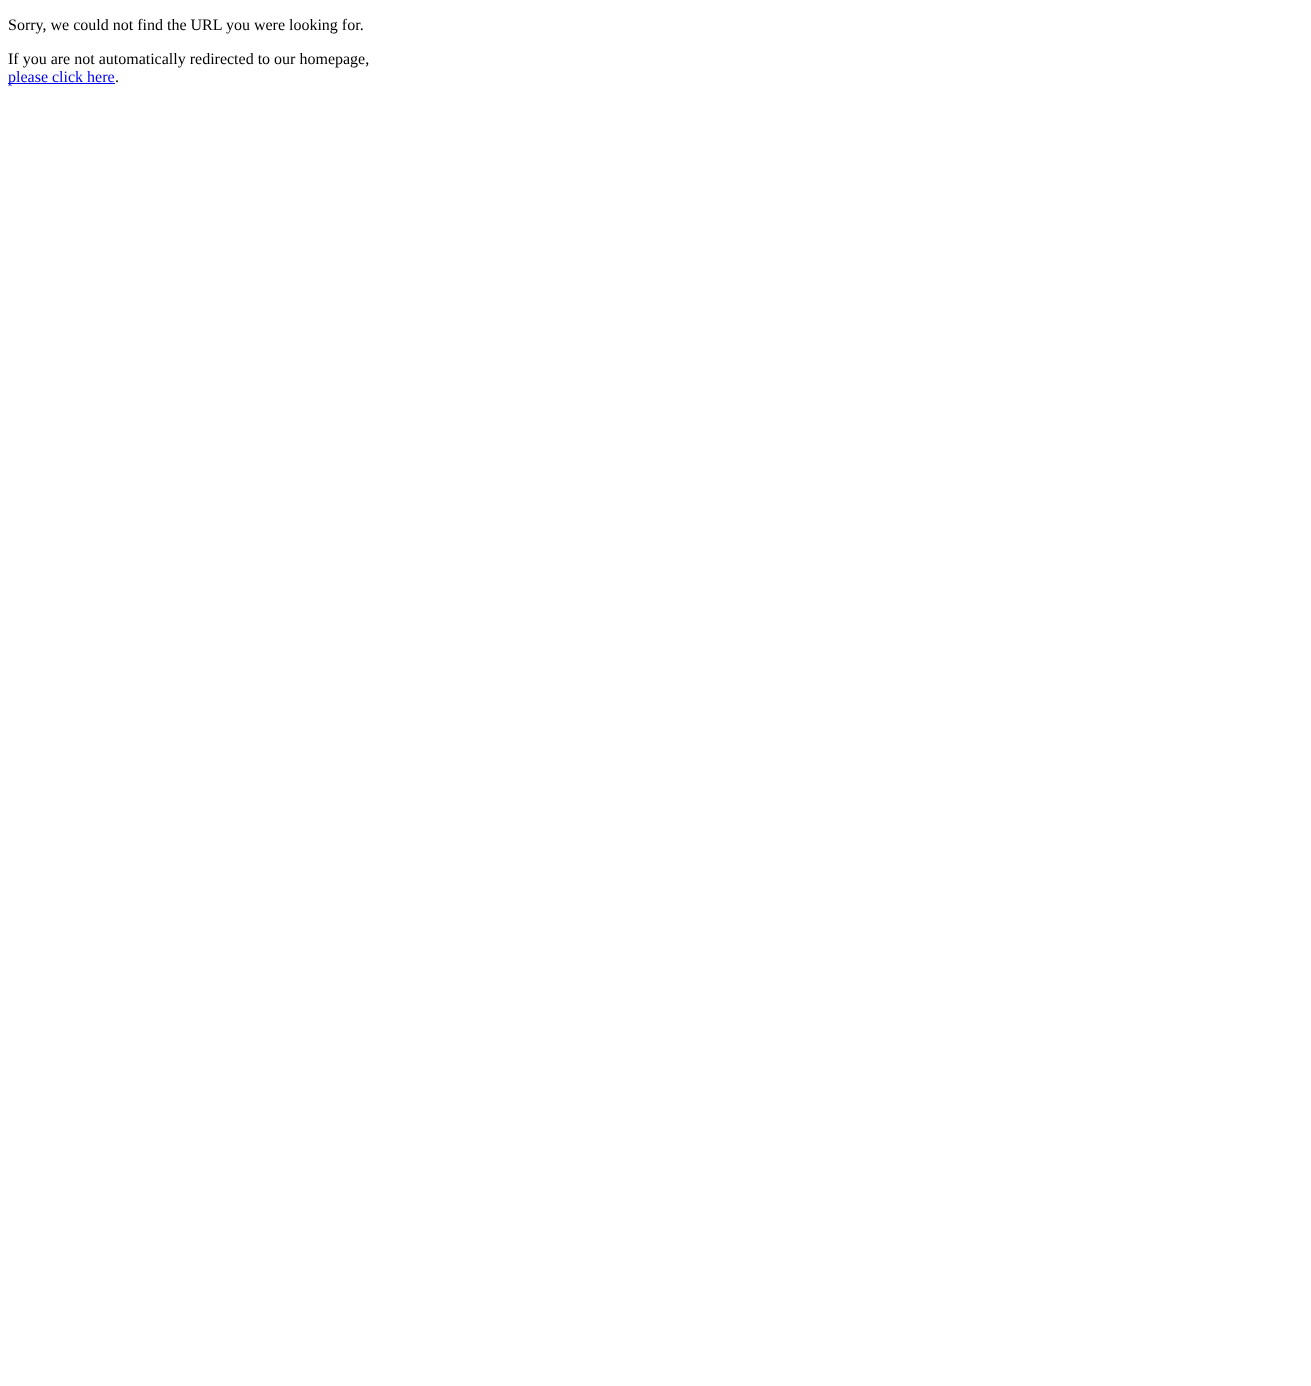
<!DOCTYPE html>
<meta charset="utf-8">
<style>body { margin: 0 } canvas { display: block }</style>
<canvas id="canvas" width="1311" height="1386"></canvas>
<script>
window.onload = function () {
    const canvas = document.getElementById('canvas');
    const context = canvas.getContext('2d');
    context.miterLimit = 4;
    context.fontKerning = 'normal';

    context.fillStyle = 'rgb(255, 255, 255)';
    context.fillRect(0, 0, 1311, 1386);
    context.fillStyle = 'rgb(0, 0, 238)';
    context.fillRect(8, 83, 107, 1);
    context.font = '16px Liberation Serif';
    context.fillStyle = 'rgb(0, 0, 0)';
    context.fillText('Sorry, we could not find the URL you were looking for.', 8, 30);
    context.fillText('If you are not automatically redirected to our homepage,', 8, 64);
    context.fillStyle = 'rgb(0, 0, 238)';
    context.fillText('please click here', 8, 82);
    context.fillStyle = 'rgb(0, 0, 0)';
    context.fillText('.', 115, 82);
};
</script>
